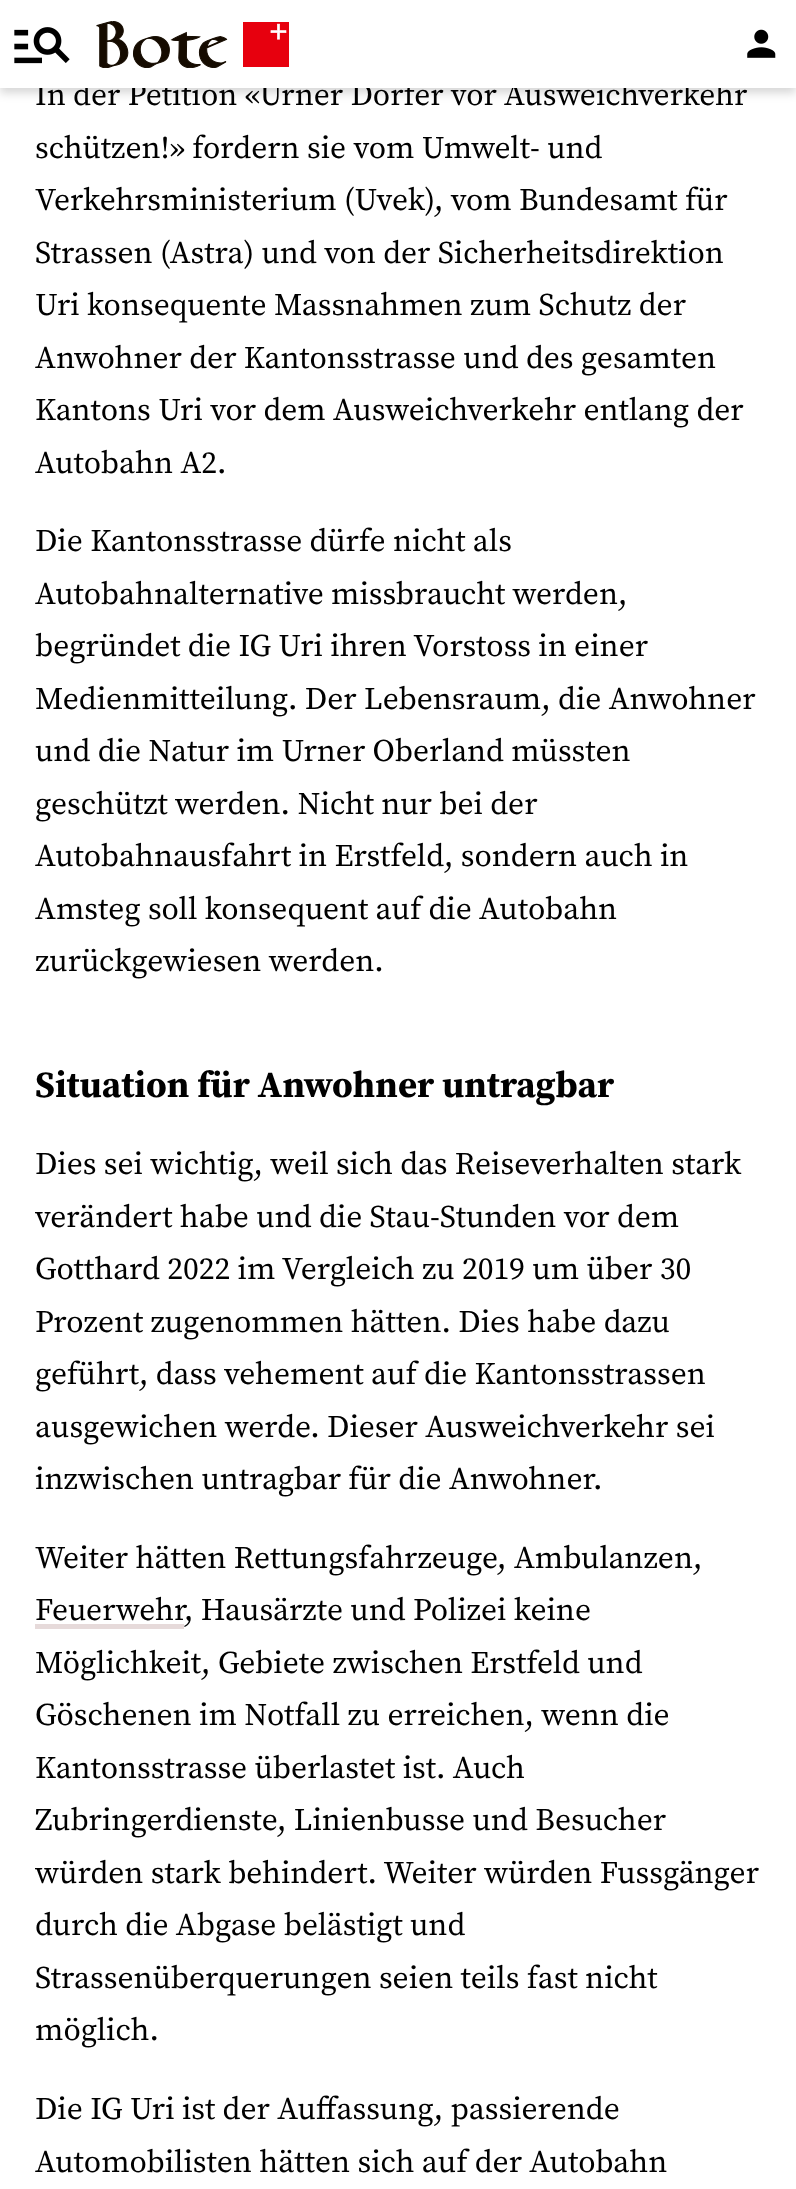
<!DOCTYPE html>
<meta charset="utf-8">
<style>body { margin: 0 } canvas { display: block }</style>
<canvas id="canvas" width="796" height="2189"></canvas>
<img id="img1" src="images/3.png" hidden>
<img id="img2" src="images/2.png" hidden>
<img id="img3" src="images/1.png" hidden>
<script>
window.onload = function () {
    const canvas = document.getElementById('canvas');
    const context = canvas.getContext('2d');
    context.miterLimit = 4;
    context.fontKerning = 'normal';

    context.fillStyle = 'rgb(255, 255, 255)';
    context.fillRect(0, 0, 796, 2189);
    context.fillStyle = 'rgba(0, 0, 0, 0.16)';
    context.filter = 'blur(5px)';
    context.beginPath();
    context.rect(0, 5, 796, 88);
    context.fill();
    context.filter = 'none';
    context.fillStyle = 'rgb(230, 218, 218)';
    context.fillRect(35, 1624, 149, 5);
    context.font = '31.5px Source Serif Pro';
    context.fillStyle = 'rgb(0, 0, 0)';
    context.fillText('In der Petition «Urner Dörfer vor Ausweichverkehr', 35, 105);
    context.fillStyle = 'rgb(255, 255, 255)';
    context.fillRect(0, 0, 796, 88);
    context.drawImage(document.getElementById('img1'), 747, 29, 29, 29);
    context.drawImage(document.getElementById('img2'), 96, 21, 193, 47);
    context.drawImage(document.getElementById('img3'), 14, 27, 56, 37);
    context.fillStyle = 'rgb(0, 0, 0)';
    context.fillText('schützen!» fordern sie vom Umwelt- und', 35, 158);
    context.fillText('Verkehrsministerium (Uvek), vom Bundesamt für', 35, 210);
    context.fillText('Strassen (Astra) und von der Sicherheitsdirektion', 35, 263);
    context.fillText('Uri konsequente Massnahmen zum Schutz der', 35, 315);
    context.fillText('Anwohner der Kantonsstrasse und des gesamten', 35, 368);
    context.fillText('Kantons Uri vor dem Ausweichverkehr entlang der', 35, 420);
    context.fillText('Autobahn A2.', 35, 473);
    context.fillText('Die Kantonsstrasse dürfe nicht als', 35, 551);
    context.fillText('Autobahnalternative missbraucht werden,', 35, 604);
    context.fillText('begründet die IG Uri ihren Vorstoss in einer', 35, 656);
    context.fillText('Medienmitteilung. Der Lebensraum, die Anwohner', 35, 709);
    context.fillText('und die Natur im Urner Oberland müssten', 35, 761);
    context.fillText('geschützt werden. Nicht nur bei der', 35, 814);
    context.fillText('Autobahnausfahrt in Erstfeld, sondern auch in', 35, 866);
    context.fillText('Amsteg soll konsequent auf die Autobahn', 35, 919);
    context.fillText('zurückgewiesen werden.', 35, 971);
    context.font = 'bold 36.75px Source Serif Pro';
    context.fillText('Situation für Anwohner untragbar', 35, 1097);
    context.font = '31.5px Source Serif Pro';
    context.fillText('Dies sei wichtig, weil sich das Reiseverhalten stark', 35, 1174);
    context.fillText('verändert habe und die Stau-Stunden vor dem', 35, 1227);
    context.fillText('Gotthard 2022 im Vergleich zu 2019 um über 30', 35, 1279);
    context.fillText('Prozent zugenommen hätten. Dies habe dazu', 35, 1332);
    context.fillText('geführt, dass vehement auf die Kantonsstrassen', 35, 1384);
    context.fillText('ausgewichen werde. Dieser Ausweichverkehr sei', 35, 1437);
    context.fillText('inzwischen untragbar für die Anwohner.', 35, 1489);
    context.fillText('Weiter hätten Rettungsfahrzeuge, Ambulanzen,', 35, 1568);
    context.fillText('Feuerwehr', 35, 1620);
    context.fillText(', Hausärzte und Polizei keine', 184, 1620);
    context.fillText('Möglichkeit, Gebiete zwischen Erstfeld und', 35, 1673);
    context.fillText('Göschenen im Notfall zu erreichen, wenn die', 35, 1725);
    context.fillText('Kantonsstrasse überlastet ist. Auch', 35, 1778);
    context.fillText('Zubringerdienste, Linienbusse und Besucher', 35, 1830);
    context.fillText('würden stark behindert. Weiter würden Fussgänger', 35, 1883);
    context.fillText('durch die Abgase belästigt und', 35, 1935);
    context.fillText('Strassenüberquerungen seien teils fast nicht', 35, 1988);
    context.fillText('möglich.', 35, 2040);
    context.fillText('Die IG Uri ist der Auffassung, passierende', 35, 2119);
    context.fillText('Automobilisten hätten sich auf der Autobahn', 35, 2172);
};
</script>
